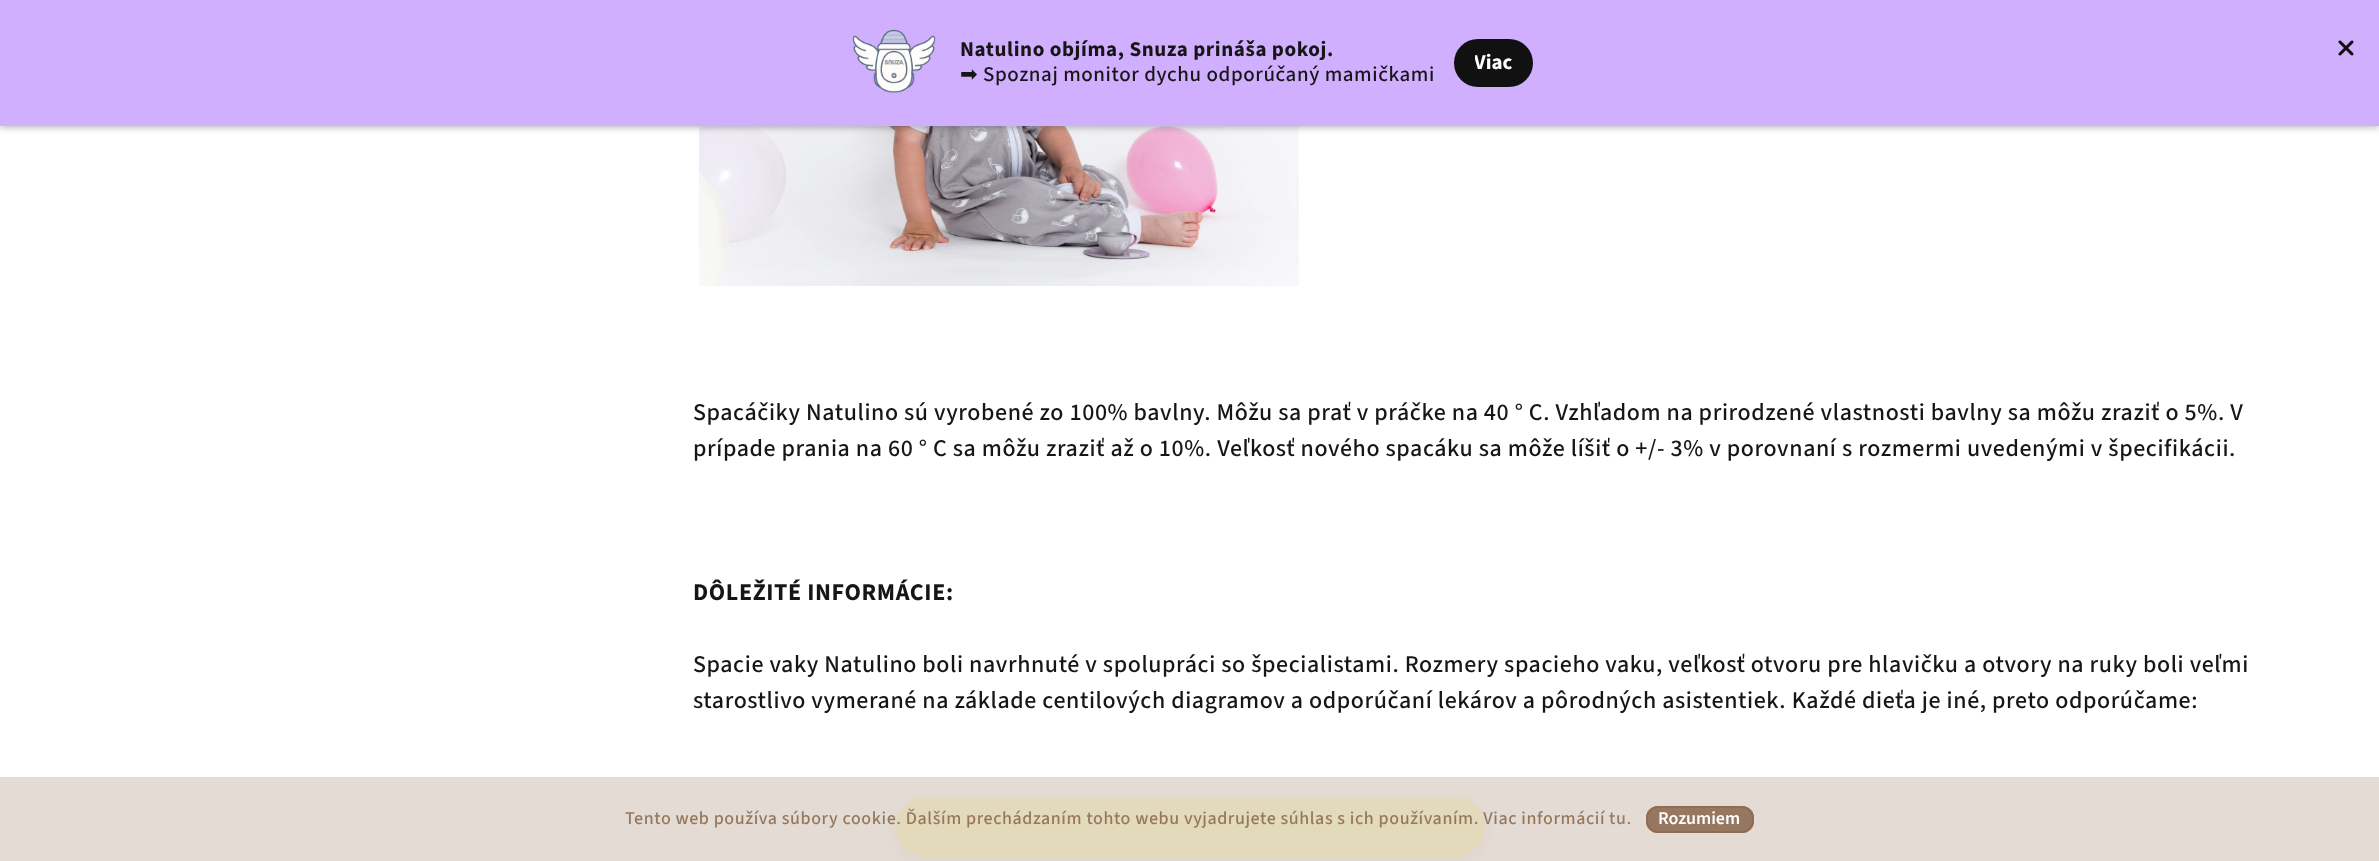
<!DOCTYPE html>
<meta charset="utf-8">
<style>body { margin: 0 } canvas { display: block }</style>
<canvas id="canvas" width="2379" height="861"></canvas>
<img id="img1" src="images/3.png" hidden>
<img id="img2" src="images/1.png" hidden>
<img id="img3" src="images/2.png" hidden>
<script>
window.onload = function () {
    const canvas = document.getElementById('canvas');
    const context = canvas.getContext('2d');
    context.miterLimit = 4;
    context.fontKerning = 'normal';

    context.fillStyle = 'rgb(255, 255, 255)';
    context.fillRect(0, 0, 2379, 861);
    context.drawImage(document.getElementById('img1'), 699, 126, 600, 160);
    context.fillStyle = 'rgba(0, 0, 0, 0.25)';
    context.filter = 'blur(3px)';
    context.beginPath();
    context.rect(0, 2, 2379, 126);
    context.fill();
    context.filter = 'none';
    context.fillStyle = 'rgb(209, 175, 255)';
    context.fillRect(0, 0, 2379, 126);
    context.drawImage(document.getElementById('img2'), 852, 29, 84, 64);
    context.drawImage(document.getElementById('img3'), 2338, 40, 16, 16);
    context.fillStyle = 'rgb(17, 17, 17)';
    context.beginPath();
    context.roundRect(1454, 39, 79, 48, 24);
    context.fill();
    context.fillStyle = 'rgba(0, 0, 0, 0.3)';
    context.filter = 'blur(9px)';
    context.beginPath();
    context.roundRect(896, 803, 589, 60, 30);
    context.fill();
    context.filter = 'none';
    context.fillStyle = 'rgb(255, 235, 0)';
    context.beginPath();
    context.roundRect(896, 797, 589, 60, 30);
    context.fill();
    context.fillStyle = 'rgba(224, 215, 207, 0.9)';
    context.fillRect(0, 777, 2379, 84);
    context.fillStyle = 'rgba(141, 108, 83, 0.9)';
    context.beginPath();
    context.roundRect(1646, 806, 108, 27, 12);
    context.fill();
    context.beginPath();
    context.roundRect(1647, 807, 106, 25, 11);
    context.strokeStyle = 'rgba(141, 108, 83, 0.9)';
    context.lineWidth = 2;
    context.stroke();
    context.letterSpacing = '0.6px';
    context.font = 'bold 21px "Source Sans 3"';
    context.fillStyle = 'rgb(22, 22, 22)';
    context.fillText('Natulino objíma, Snuza prináša pokoj.', 960, 56);
    context.font = '21px DejaVu Sans';
    context.fillText('➡', 960, 81);
    context.font = '500 21px "Source Sans 3"';
    context.fillText('Spoznaj monitor dychu odporúčaný mamičkami', 983, 81);
    context.save();
    context.beginPath();
    context.rect(1475, 50, 37, 27);
    context.clip();
    context.letterSpacing = '0px';
    context.font = 'bold 21px "Source Sans 3"';
    context.fillStyle = 'rgb(255, 255, 255)';
    context.fillText('Viac', 1474, 69);
    context.restore();
    context.font = '500 24px "Source Sans 3"';
    context.fillText('Spacáčiky Natulino sú vyrobené zo 100% bavlny. Môžu sa prať v práčke na 40 ° C. Vzhľadom na prirodzené vlastnosti bavlny sa môžu zraziť o 5%. V', 693, 420);
    context.fillText('prípade prania na 60 ° C sa môžu zraziť až o 10%. Veľkosť nového spacáku sa môže líšiť o +/- 3% v porovnaní s rozmermi uvedenými v špecifikácii.', 693, 456);
    context.font = 'bold 24px "Source Sans 3"';
    context.fillText('DÔLEŽITÉ INFORMÁCIE:', 693, 600);
    context.font = '500 24px "Source Sans 3"';
    context.fillText('Spacie vaky Natulino boli navrhnuté v spolupráci so špecialistami. Rozmery spacieho vaku, veľkosť otvoru pre hlavičku a otvory na ruky boli veľmi', 693, 672);
    context.fillText('starostlivo vymerané na základe centilových diagramov a odporúčaní lekárov a pôrodných asistentiek. Každé dieťa je iné, preto odporúčame:', 693, 708);
    context.font = '500 18px "Source Sans 3"';
    context.fillStyle = 'rgb(149, 119, 94)';
    context.fillText('Tento web používa súbory cookie. Ďalším prechádzaním tohto webu vyjadrujete súhlas s ich používaním. Viac informácií', 625, 824);
    context.fillStyle = 'rgb(152, 123, 100)';
    context.fillText('tu.', 1609, 824);
    context.letterSpacing = '0px';
    context.font = '600 18px "Source Sans 3"';
    context.fillStyle = 'rgb(255, 255, 255)';
    context.fillText('Rozumiem', 1658, 824);
};
</script>
